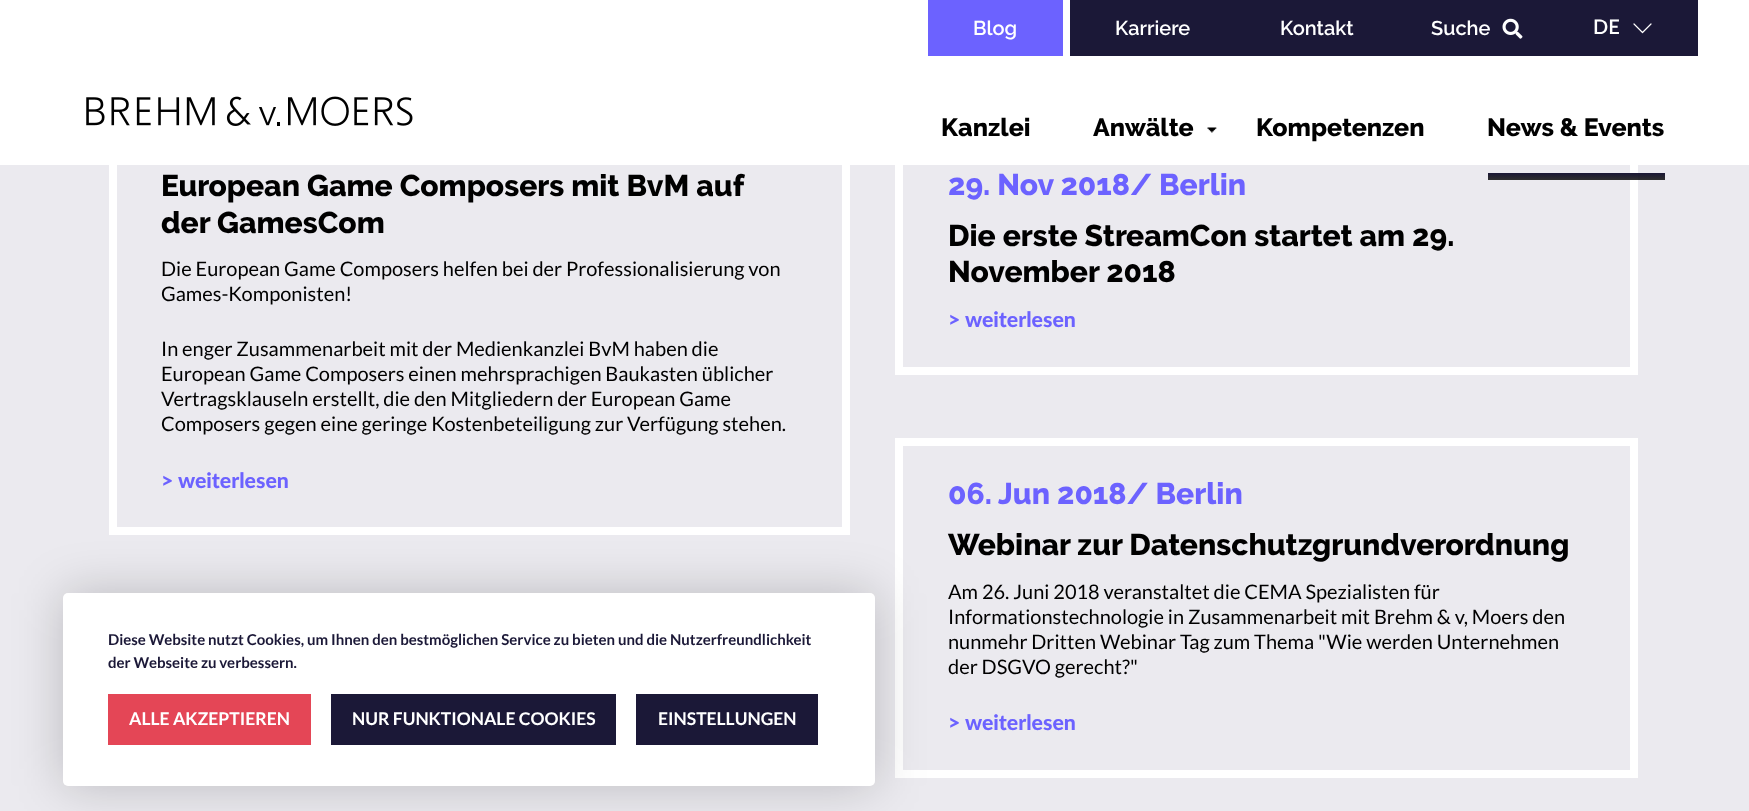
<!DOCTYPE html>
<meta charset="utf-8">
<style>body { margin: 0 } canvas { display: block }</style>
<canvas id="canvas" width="1749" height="811"></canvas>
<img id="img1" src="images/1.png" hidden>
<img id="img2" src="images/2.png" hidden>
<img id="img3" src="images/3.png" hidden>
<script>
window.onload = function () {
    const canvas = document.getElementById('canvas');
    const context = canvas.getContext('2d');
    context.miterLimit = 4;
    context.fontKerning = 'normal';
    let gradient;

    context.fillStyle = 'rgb(235, 234, 239)';
    context.fillRect(0, 0, 1749, 811);
    context.strokeStyle = 'rgb(255, 255, 255)';
    context.lineWidth = 8;
    context.strokeRect(113, 83, 733, 448);
    context.strokeRect(899, 49, 735, 322);
    context.fillStyle = 'rgb(255, 255, 255)';
    context.fillRect(0, 0, 1749, 165);
    context.fillStyle = 'rgb(108, 98, 255)';
    context.fillRect(928, 0, 135, 56);
    context.fillStyle = 'rgb(27, 24, 55)';
    context.fillRect(1070, 0, 628, 56);
    context.drawImage(document.getElementById('img1'), 1502, 18, 21, 21);
    context.beginPath();
    context.moveTo(1634, 24);
    context.lineTo(1642.5, 32.5);
    context.moveTo(1651, 24);
    context.lineTo(1642.5, 32.5);
    context.lineWidth = 1.2;
    context.lineCap = 'round';
    context.lineJoin = 'round';
    context.stroke();
    context.drawImage(document.getElementById('img2'), 86, 96, 327, 30);
    context.drawImage(document.getElementById('img3'), 1207, 127, 10, 6);
    gradient = context.createLinearGradient(1576, 173, 1576, 180);
    gradient.addColorStop(0, 'rgb(27, 24, 55)');
    gradient.addColorStop(1, 'rgba(0, 0, 0, 0.8)');
    context.fillStyle = gradient;
    context.fillRect(1488, 173, 177, 7);
    context.lineWidth = 8;
    context.lineJoin = 'miter';
    context.strokeRect(899, 442, 735, 332);
    context.fillStyle = 'rgba(0, 0, 0, 0.2)';
    context.filter = 'blur(25px)';
    context.beginPath();
    context.roundRect(63, 593, 812, 193, 5);
    context.fill();
    context.filter = 'none';
    context.fillStyle = 'rgb(255, 255, 255)';
    context.beginPath();
    context.roundRect(63, 593, 812, 193, 5);
    context.fill();
    context.fillStyle = 'rgb(228, 70, 86)';
    context.fillRect(108, 694, 203, 51);
    context.fillStyle = 'rgb(27, 24, 55)';
    context.fillRect(331, 694, 285, 51);
    context.fillRect(636, 694, 182, 51);
    context.font = '600 20px Raleway';
    context.fillStyle = 'rgb(255, 255, 255)';
    context.fillText('Blog', 973, 35);
    context.fillText('Karriere', 1115, 35);
    context.fillText('Kontakt', 1280, 35);
    context.fillText('Suche', 1431, 35);
    context.font = '600 20px Lato';
    context.fillText('DE', 1593, 34);
    context.font = '800 25px Raleway';
    context.fillStyle = 'rgb(0, 0, 0)';
    context.fillText('Kanzlei', 941, 136);
    context.fillText('Anwälte', 1093, 136);
    context.fillText('Kompetenzen', 1256, 136);
    context.fillText('News & Events', 1487, 136);
    context.font = '800 30px Raleway';
    context.fillText('European Game Composers mit BvM auf', 161, 196);
    context.fillText('der GamesCom', 161, 233);
    context.font = '20px Lato';
    context.fillText('Die European Game Composers helfen bei der Professionalisierung von', 161, 276);
    context.fillText('Games-Komponisten!', 161, 301);
    context.fillText('In enger Zusammenarbeit mit der Medienkanzlei BvM haben die', 161, 356);
    context.fillText('European Game Composers einen mehrsprachigen Baukasten üblicher', 161, 381);
    context.fillText('Vertragsklauseln erstellt, die den Mitgliedern der European Game', 161, 406);
    context.fillText('Composers gegen eine geringe Kostenbeteiligung zur Verfügung stehen.', 161, 431);
    context.font = '900 21.25px Lato';
    context.fillStyle = 'rgb(108, 98, 255)';
    context.fillText('> weiterlesen', 161, 488);
    context.font = '800 30px Raleway';
    context.fillText('29. Nov 2018/ Berlin', 948, 195);
    context.fillStyle = 'rgb(0, 0, 0)';
    context.fillText('Die erste StreamCon startet am 29.', 948, 246);
    context.fillText('November 2018', 948, 282);
    context.font = '900 21.25px Lato';
    context.fillStyle = 'rgb(108, 98, 255)';
    context.fillText('> weiterlesen', 948, 327);
    context.font = '800 30px Raleway';
    context.fillText('06. Jun 2018/ Berlin', 948, 504);
    context.fillStyle = 'rgb(0, 0, 0)';
    context.fillText('Webinar zur Datenschutzgrundverordnung', 948, 555);
    context.font = '20px Lato';
    context.fillText('Am 26. Juni 2018 veranstaltet die CEMA Spezialisten für', 948, 599);
    context.fillText('Informationstechnologie in Zusammenarbeit mit Brehm & v, Moers den', 948, 624);
    context.fillText('nunmehr Dritten Webinar Tag zum Thema "Wie werden Unternehmen', 948, 649);
    context.fillText('der DSGVO gerecht?"', 948, 674);
    context.font = '900 21.25px Lato';
    context.fillStyle = 'rgb(108, 98, 255)';
    context.fillText('> weiterlesen', 948, 730);
    context.font = 'bold 15px Lato';
    context.fillStyle = 'rgb(27, 24, 55)';
    context.fillText('Diese Website nutzt Cookies, um Ihnen den bestmöglichen Service zu bieten und die Nutzerfreundlichkeit', 108, 645);
    context.fillText('der Webseite zu verbessern.', 108, 668);
    context.font = 'bold 17.5px Lato';
    context.fillStyle = 'rgb(255, 255, 255)';
    context.fillText('ALLE AKZEPTIEREN', 129, 725);
    context.fillText('NUR FUNKTIONALE COOKIES', 352, 725);
    context.fillText('EINSTELLUNGEN', 658, 725);
};
</script>
